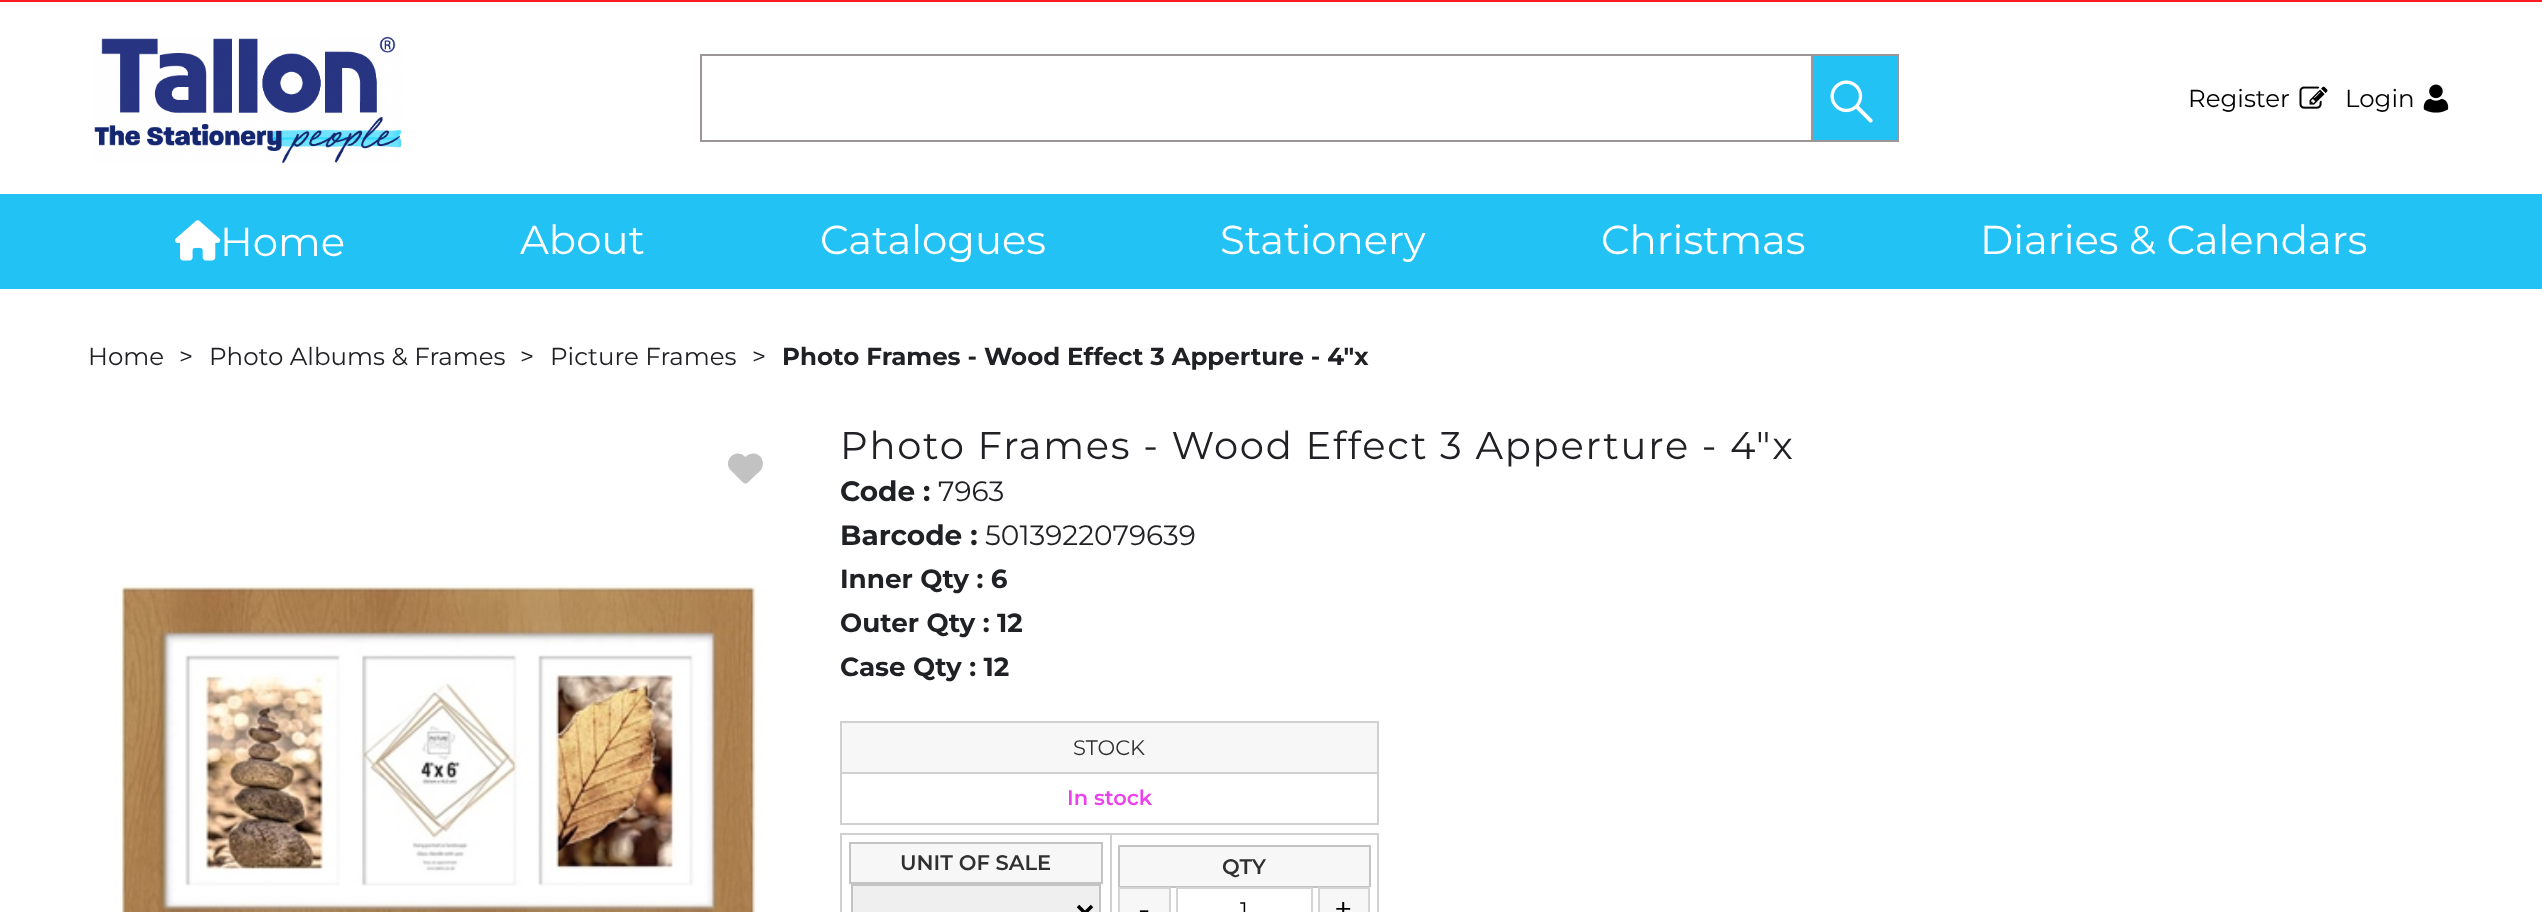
<!DOCTYPE html>
<meta charset="utf-8">
<style>body { margin: 0 } canvas { display: block }</style>
<canvas id="canvas" width="2542" height="912"></canvas>
<img id="img1" src="images/1.png" hidden>
<img id="img2" src="images/2.png" hidden>
<img id="img3" src="images/3.png" hidden>
<img id="img4" src="images/4.png" hidden>
<img id="img5" src="images/5.png" hidden>
<img id="img6" src="images/6.png" hidden>
<script>
window.onload = function () {
    const canvas = document.getElementById('canvas');
    const context = canvas.getContext('2d');
    context.miterLimit = 4;
    context.fontKerning = 'normal';

    context.fillStyle = 'rgb(255, 255, 255)';
    context.fillRect(0, 0, 2542, 912);
    context.fillStyle = 'rgb(253, 26, 35)';
    context.fillRect(0, 0, 2542, 2);
    context.drawImage(document.getElementById('img1'), 94, 36, 308, 127);
    context.fillStyle = 'rgb(158, 150, 150)';
    context.fillRect(700, 54, 1111, 2);
    context.fillRect(700, 140, 1111, 2);
    context.fillRect(700, 54, 2, 88);
    context.fillStyle = 'rgb(34, 194, 244)';
    context.beginPath();
    context.rect(1812, 55, 86, 86);
    context.fill();
    context.strokeStyle = 'rgb(158, 150, 150)';
    context.lineWidth = 2;
    context.stroke();
    context.drawImage(document.getElementById('img2'), 1830, 80, 43, 43);
    context.drawImage(document.getElementById('img3'), 2299, 86, 29, 23);
    context.drawImage(document.getElementById('img4'), 2423, 84, 26, 29);
    context.fillRect(0, 194, 2542, 95);
    context.drawImage(document.getElementById('img5'), 175, 220, 46, 41);
    context.fillStyle = 'rgb(194, 194, 194)';
    context.beginPath();
    context.moveTo(731.5, 471);
    context.lineTo(741.5, 481);
    context.bezierCurveTo(745.5, 484.5, 745.5, 484.5, 749.5, 481);
    context.lineTo(753.5, 477);
    context.bezierCurveTo(756.5, 474, 760.5, 471.5, 762, 468);
    context.bezierCurveTo(766.5, 457.5, 754.5, 448.5, 745.5, 457);
    context.bezierCurveTo(735, 446.5, 721.5, 462, 731.5, 471);
    context.closePath();
    context.fill();
    context.drawImage(document.getElementById('img6'), 120, 585, 637, 327);
    context.fillStyle = 'rgb(247, 247, 247)';
    context.fillRect(842, 723, 535, 49);
    context.fillStyle = 'rgb(208, 208, 208)';
    context.fillRect(840, 721, 539, 2);
    context.fillRect(840, 772, 539, 2);
    context.fillRect(1377, 772, 2, 52);
    context.fillRect(1377, 721, 2, 53);
    context.fillRect(840, 823, 539, 2);
    context.fillRect(840, 772, 2, 52);
    context.fillRect(840, 721, 2, 53);
    context.fillRect(1110, 833, 269, 2);
    context.fillRect(1110, 833, 2, 79);
    context.fillRect(840, 833, 271, 2);
    context.fillRect(840, 833, 2, 79);
    context.fillStyle = 'rgb(247, 247, 247)';
    context.fillRect(851, 844, 250, 38);
    context.fillStyle = 'rgb(195, 195, 195)';
    context.fillRect(849, 842, 254, 2);
    context.fillRect(1101, 842, 2, 42);
    context.fillRect(849, 882, 254, 2);
    context.fillRect(849, 842, 2, 42);
    context.fillStyle = 'rgb(239, 239, 239)';
    context.beginPath();
    context.rect(852, 885, 248, 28);
    context.fill();
    context.strokeStyle = 'rgb(195, 195, 195)';
    context.stroke();
    context.beginPath();
    context.moveTo(1078, 906);
    context.lineTo(1085, 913);
    context.lineTo(1092, 906);
    context.strokeStyle = 'rgb(0, 0, 0)';
    context.lineWidth = 3.5;
    context.stroke();
    context.fillStyle = 'rgb(208, 208, 208)';
    context.fillRect(1377, 833, 2, 79);
    context.fillStyle = 'rgb(247, 247, 247)';
    context.fillRect(1120, 847, 249, 39);
    context.fillStyle = 'rgb(195, 195, 195)';
    context.fillRect(1118, 845, 252, 2);
    context.fillRect(1369, 845, 2, 42);
    context.fillRect(1118, 886, 252, 2);
    context.fillRect(1118, 845, 2, 42);
    context.fillStyle = 'rgb(247, 247, 247)';
    context.beginPath();
    context.rect(1119, 888, 51, 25);
    context.fill();
    context.strokeStyle = 'rgb(212, 212, 212)';
    context.lineWidth = 2;
    context.stroke();
    context.strokeRect(1177, 888, 135, 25);
    context.beginPath();
    context.rect(1319, 888, 50, 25);
    context.fill();
    context.stroke();
    context.font = '24.5px Montserrat';
    context.fillStyle = 'rgb(0, 0, 0)';
    context.fillText('Register', 2188, 107);
    context.fillText('Login', 2345, 107);
    context.font = '40.25px Montserrat';
    context.fillStyle = 'rgb(255, 255, 255)';
    context.fillText('Home', 220, 256);
    context.fillText('About', 520, 254);
    context.fillText('Catalogues', 820, 254);
    context.fillText('Stationery', 1220, 254);
    context.fillText('Christmas', 1601, 254);
    context.fillText('Diaries & Calendars', 1980, 254);
    context.font = '24.5px Montserrat';
    context.fillStyle = 'rgb(32, 33, 37)';
    context.fillText('Home', 88, 365);
    context.fillText('>', 179, 365);
    context.fillText('Photo Albums & Frames', 209, 365);
    context.fillText('>', 520, 365);
    context.fillText('Picture Frames', 550, 365);
    context.fillText('>', 752, 365);
    context.font = 'bold 24.5px Montserrat';
    context.fillText('Photo Frames - Wood Effect 3 Apperture - 4"x', 782, 365);
    context.letterSpacing = '1.75px';
    context.font = '38.5px Montserrat';
    context.fillText('Photo Frames - Wood Effect 3 Apperture - 4"x', 840, 459);
    context.letterSpacing = '0px';
    context.font = 'bold 28px Montserrat';
    context.fillText('Code :', 840, 501);
    context.font = '28px Montserrat';
    context.fillText('7963', 938, 501);
    context.font = 'bold 28px Montserrat';
    context.fillText('Barcode :', 840, 545);
    context.font = '28px Montserrat';
    context.fillText('5013922079639', 985, 545);
    context.font = 'bold 26.25px Montserrat';
    context.fillText('Inner Qty : 6', 840, 588);
    context.fillText('Outer Qty : 12', 840, 632);
    context.fillText('Case Qty : 12', 840, 676);
    context.font = '21px Montserrat';
    context.fillStyle = 'rgb(48, 48, 48)';
    context.fillText('STOCK', 1073, 755);
    context.font = '600 21px Montserrat';
    context.fillStyle = 'rgb(234, 66, 237)';
    context.fillText('In stock', 1067, 805);
    context.fillStyle = 'rgb(48, 48, 48)';
    context.fillText('UNIT OF SALE', 900, 870);
    context.fillText('QTY', 1222, 874);
    context.font = '32px Montserrat';
    context.fillStyle = 'rgb(0, 0, 0)';
    context.fillText('-', 1138, 920);
    context.font = '21px Montserrat';
    context.fillText('1', 1240, 917);
    context.font = '32px Montserrat';
    context.fillText('+', 1334, 920);
};
</script>
